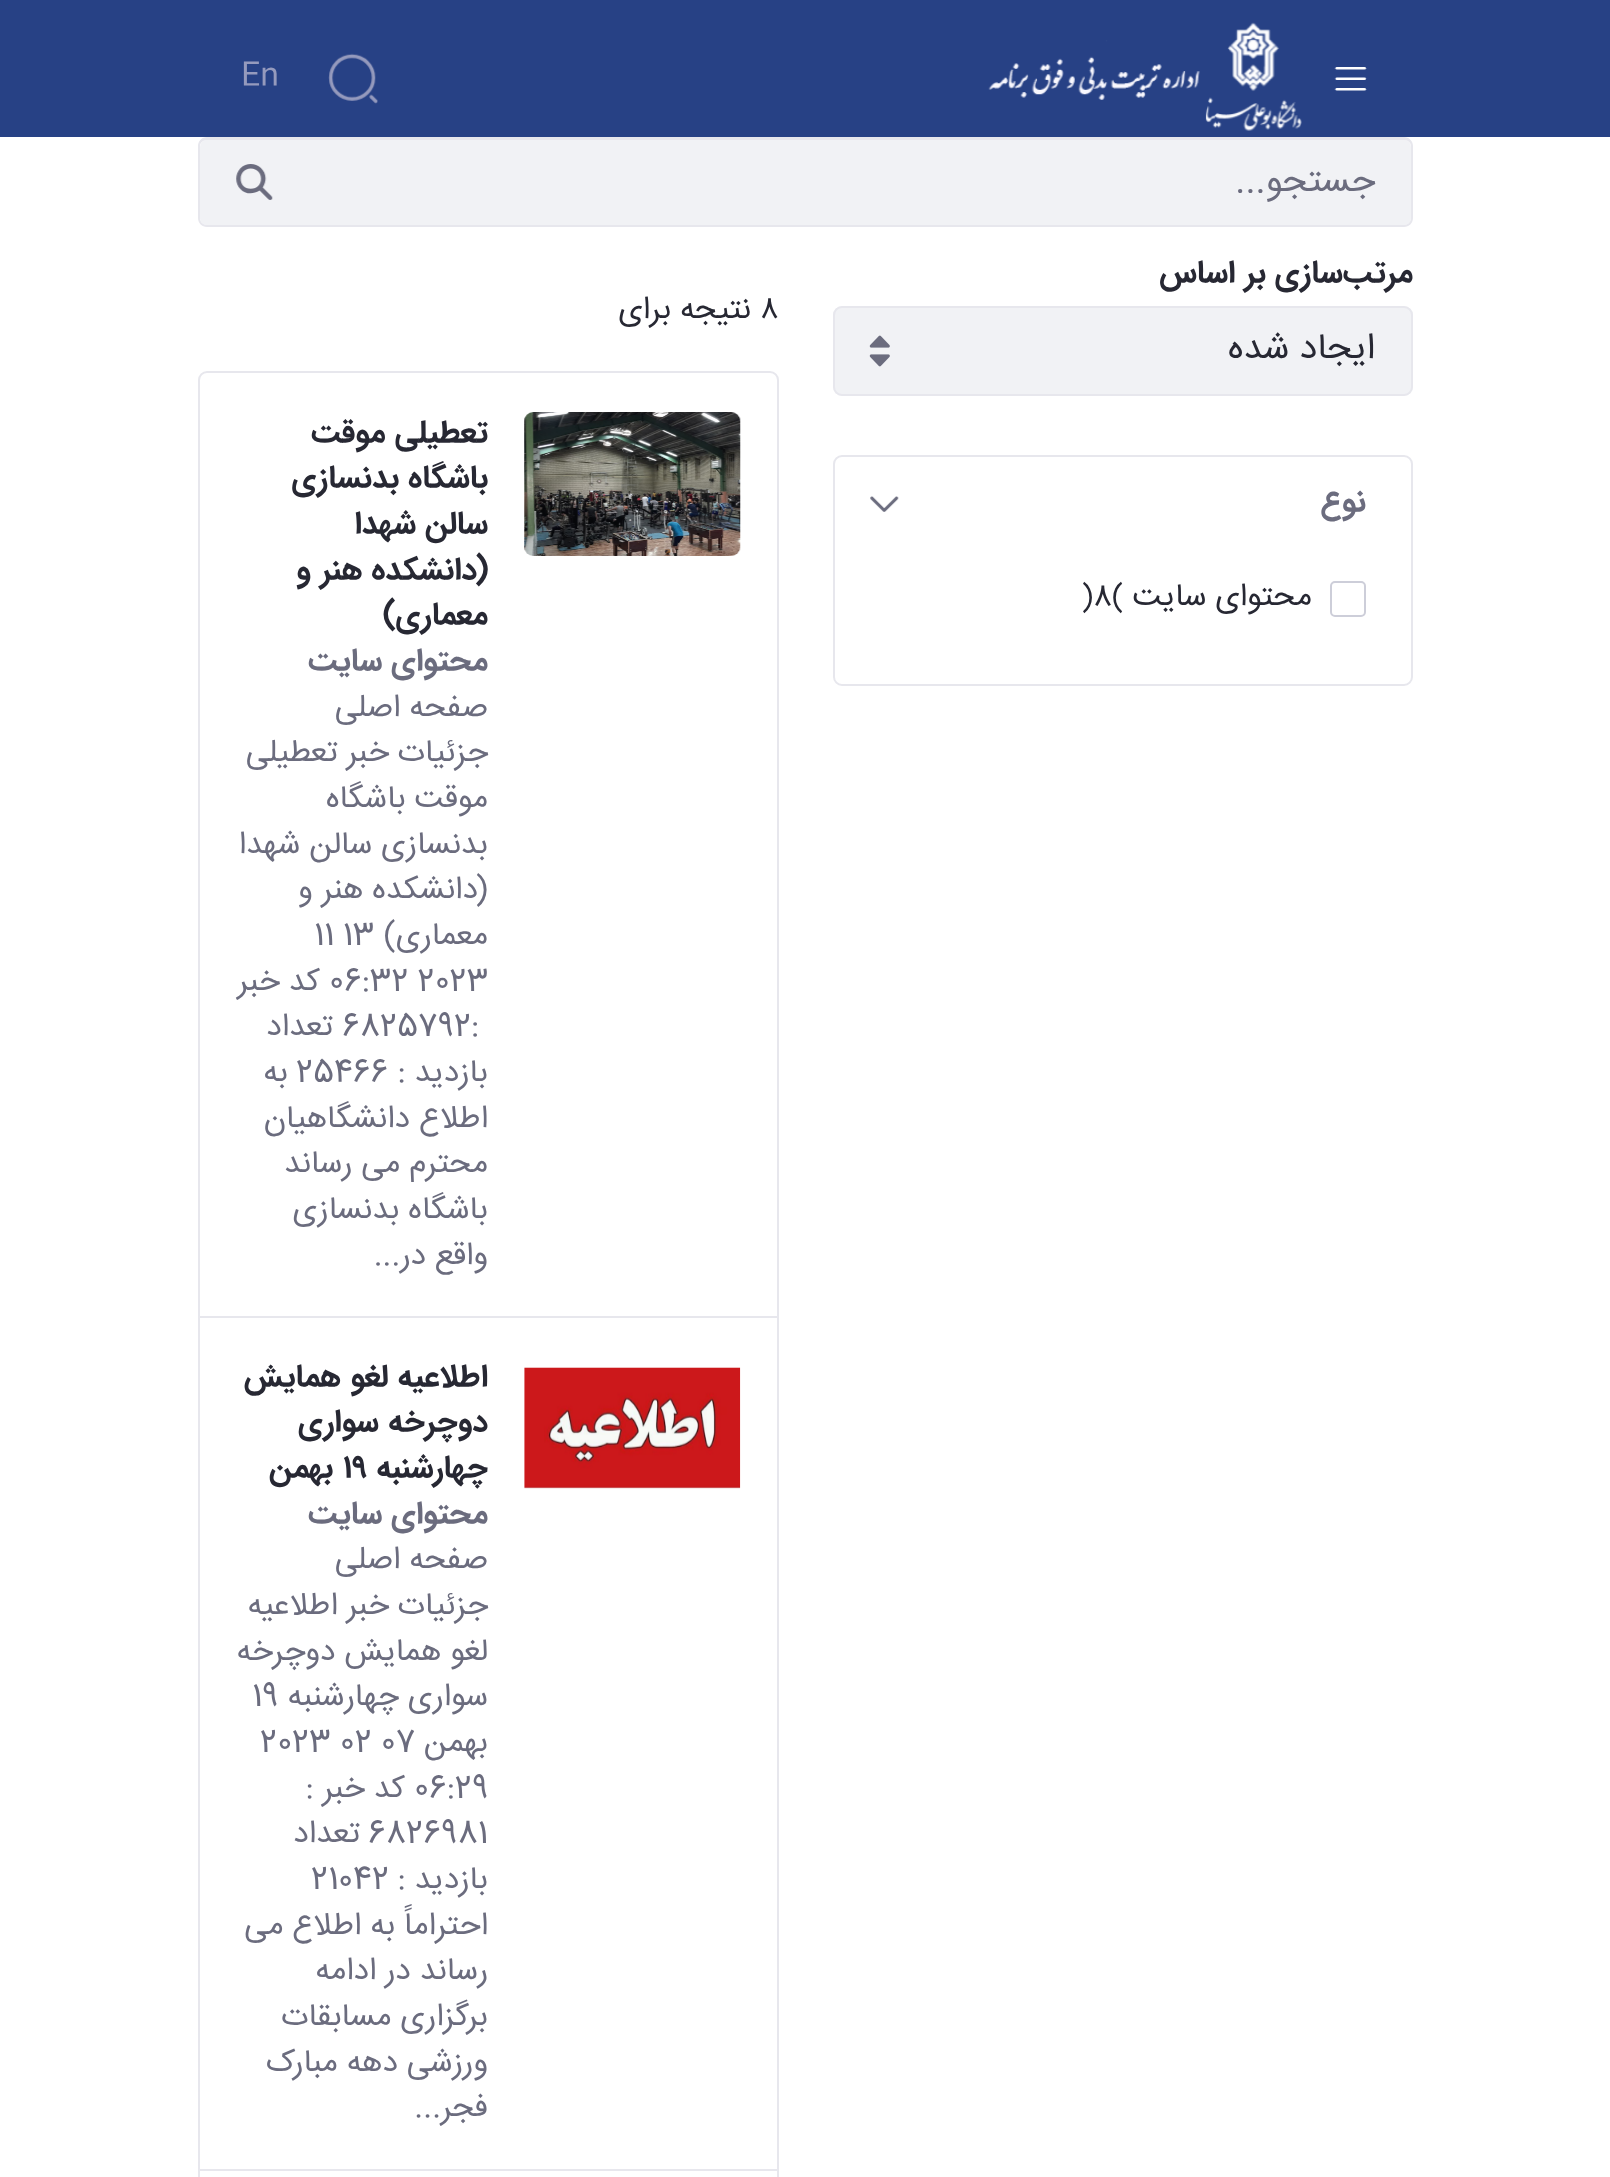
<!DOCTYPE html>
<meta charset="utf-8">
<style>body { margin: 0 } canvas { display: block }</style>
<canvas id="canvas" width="1610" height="2177"></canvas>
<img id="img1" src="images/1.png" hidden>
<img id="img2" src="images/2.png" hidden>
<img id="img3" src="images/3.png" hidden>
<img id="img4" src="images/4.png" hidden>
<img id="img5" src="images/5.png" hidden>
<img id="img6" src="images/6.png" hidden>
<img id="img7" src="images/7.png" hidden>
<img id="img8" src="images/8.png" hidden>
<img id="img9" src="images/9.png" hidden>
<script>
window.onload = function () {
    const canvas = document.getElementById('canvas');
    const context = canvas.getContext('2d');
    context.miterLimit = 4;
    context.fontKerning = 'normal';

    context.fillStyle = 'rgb(255, 255, 255)';
    context.fillRect(0, 0, 1610, 2177);
    context.fillStyle = 'rgb(39, 65, 133)';
    context.fillRect(0, 0, 1610, 137);
    context.drawImage(document.getElementById('img1'), 1334, 67, 33, 24);
    context.drawImage(document.getElementById('img2'), 1205, 22, 97, 109);
    context.drawImage(document.getElementById('img3'), 988, 40, 212, 60);
    context.drawImage(document.getElementById('img4'), 328, 53, 50, 51);
    context.fillStyle = 'rgb(241, 242, 245)';
    context.beginPath();
    context.roundRect(308, 140, 1103, 85, [0, 7, 7, 0]);
    context.fill();
    context.fillStyle = 'rgb(231, 231, 237)';
    context.beginPath();
    context.moveTo(308, 137);
    context.lineTo(1404, 137);
    context.bezierCurveTo(1409, 137, 1413, 141, 1413, 146);
    context.lineTo(1413, 218);
    context.bezierCurveTo(1413, 223, 1409, 227, 1404, 227);
    context.lineTo(308, 227);
    context.closePath();
    context.moveTo(308, 140);
    context.lineTo(1404, 140);
    context.bezierCurveTo(1408, 140, 1411, 143, 1411, 146);
    context.lineTo(1411, 218);
    context.bezierCurveTo(1411, 222, 1408, 225, 1404, 225);
    context.lineTo(308, 225);
    context.closePath();
    context.fill('evenodd');
    context.fillStyle = 'rgb(241, 242, 245)';
    context.beginPath();
    context.roundRect(200, 140, 108, 85, [7, 0, 0, 7]);
    context.fill();
    context.fillStyle = 'rgb(231, 231, 237)';
    context.beginPath();
    context.moveTo(207, 137);
    context.lineTo(308, 137);
    context.lineTo(308, 227);
    context.lineTo(207, 227);
    context.bezierCurveTo(202, 227, 198, 223, 198, 218);
    context.lineTo(198, 146);
    context.bezierCurveTo(198, 141, 202, 137, 207, 137);
    context.closePath();
    context.moveTo(207, 140);
    context.lineTo(308, 140);
    context.lineTo(308, 225);
    context.lineTo(207, 225);
    context.bezierCurveTo(203, 225, 200, 222, 200, 218);
    context.lineTo(200, 146);
    context.bezierCurveTo(200, 143, 203, 140, 207, 140);
    context.closePath();
    context.fill('evenodd');
    context.drawImage(document.getElementById('img5'), 236, 164, 37, 36);
    context.fillStyle = 'rgb(241, 242, 245)';
    context.beginPath();
    context.roundRect(833, 306, 580, 90, 9);
    context.fill();
    context.drawImage(document.getElementById('img6'), 869, 335, 21, 32);
    context.beginPath();
    context.roundRect(834, 307, 578, 88, 8);
    context.strokeStyle = 'rgb(231, 231, 237)';
    context.lineWidth = 2;
    context.stroke();
    context.beginPath();
    context.roundRect(834, 456, 578, 229, 8);
    context.stroke();
    context.drawImage(document.getElementById('img7'), 870, 496, 29, 16);
    context.beginPath();
    context.roundRect(1331, 582, 34, 34, 4);
    context.strokeStyle = 'rgb(205, 206, 217)';
    context.stroke();
    context.beginPath();
    context.roundRect(199, 372, 579, 946, [8, 8, 0, 0]);
    context.strokeStyle = 'rgb(231, 231, 237)';
    context.stroke();
    context.drawImage(document.getElementById('img8'), 524, 412, 217, 144);
    context.fillStyle = 'rgb(255, 255, 255)';
    context.fillRect(200, 1318, 577, 1);
    context.strokeRect(199, 1317, 579, 853);
    context.drawImage(document.getElementById('img9'), 524, 1367, 217, 122);
    context.strokeRect(199, 2170, 579, 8);
    context.font = '31.5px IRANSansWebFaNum';
    context.fillStyle = 'rgb(149, 154, 189)';
    context.fillText('En', 241, 84);
    context.direction = 'rtl';
    context.font = '36px IRANSansWebFaNum';
    context.fillStyle = 'rgb(107, 108, 126)';
    context.fillText('جستجو...', 1375, 191);
    context.font = 'bold 31.5px IRANSansWebFaNum';
    context.fillStyle = 'rgb(39, 40, 51)';
    context.fillText('مرتب‌سازی بر اساس', 1413, 282);
    context.font = '36px IRANSansWebFaNum';
    context.fillText('ایجاد شده', 1375, 358);
    context.font = 'bold 31.5px IRANSansWebFaNum';
    context.fillStyle = 'rgb(107, 108, 126)';
    context.fillText('نوع', 1366, 511);
    context.font = '31.5px IRANSansWebFaNum';
    context.fillStyle = 'rgb(39, 40, 51)';
    context.fillText('محتوای سایت', 1312, 605);
    context.direction = 'ltr';
    context.font = '29px IRANSansWebFaNum';
    context.fillText(')8(', 1082, 605);
    context.font = '31.5px IRANSansWebFaNum';
    context.fillText('۸', 760, 318);
    context.direction = 'rtl';
    context.fillText('نتیجه برای', 751, 318);
    context.font = 'bold 31.5px IRANSansWebFaNum';
    context.fillText('تعطیلی موقت', 488, 442);
    context.fillText('باشگاه بدنسازی', 488, 487);
    context.fillText('سالن شهدا', 488, 533);
    context.fillText('(دانشکده هنر و', 488, 579);
    context.fillText('معماری)', 488, 624);
    context.fillStyle = 'rgb(107, 108, 126)';
    context.fillText('محتوای سایت', 488, 670);
    context.font = '31.5px IRANSansWebFaNum';
    context.fillText('صفحه اصلی', 488, 716);
    context.fillText('جزئیات خبر تعطیلی', 488, 761);
    context.fillText('موقت باشگاه', 488, 807);
    context.fillText('بدنسازی سالن شهدا', 488, 853);
    context.fillText('(دانشکده هنر و', 488, 898);
    context.fillText('معماری)', 488, 944);
    context.direction = 'ltr';
    context.fillText('11 13', 314, 944);
    context.fillText('06:32 2023', 329, 990);
    context.direction = 'rtl';
    context.fillText('کد خبر', 320, 990);
    context.direction = 'ltr';
    context.fillText('6825792:', 342, 1035);
    context.direction = 'rtl';
    context.fillText('تعداد', 333, 1035);
    context.fillText('بازدید :', 488, 1081);
    context.direction = 'ltr';
    context.fillText('25466', 296, 1081);
    context.direction = 'rtl';
    context.fillText('به', 288, 1081);
    context.fillText('اطلاع دانشگاهیان', 488, 1127);
    context.fillText('محترم می رساند', 488, 1172);
    context.fillText('باشگاه بدنسازی', 488, 1218);
    context.fillText('واقع در...', 488, 1264);
    context.font = 'bold 31.5px IRANSansWebFaNum';
    context.fillStyle = 'rgb(39, 40, 51)';
    context.fillText('اطلاعیه لغو همایش', 488, 1386);
    context.fillText('دوچرخه سواری', 488, 1431);
    context.fillText('چهارشنبه', 488, 1477);
    context.direction = 'ltr';
    context.fillText('19', 343, 1477);
    context.direction = 'rtl';
    context.fillText('بهمن', 333, 1477);
    context.fillStyle = 'rgb(107, 108, 126)';
    context.fillText('محتوای سایت', 488, 1523);
    context.font = '31.5px IRANSansWebFaNum';
    context.fillText('صفحه اصلی', 488, 1568);
    context.fillText('جزئیات خبر اطلاعیه', 488, 1614);
    context.fillText('لغو همایش دوچرخه', 488, 1660);
    context.fillText('سواری چهارشنبه', 488, 1705);
    context.direction = 'ltr';
    context.fillText('19', 252, 1705);
    context.direction = 'rtl';
    context.fillText('بهمن', 488, 1751);
    context.direction = 'ltr';
    context.fillText('2023 02 07', 260, 1751);
    context.fillText('06:29', 414, 1797);
    context.direction = 'rtl';
    context.fillText('کد خبر :', 405, 1797);
    context.direction = 'ltr';
    context.fillText('6826981', 368, 1842);
    context.direction = 'rtl';
    context.fillText('تعداد', 360, 1842);
    context.fillText('بازدید :', 488, 1888);
    context.direction = 'ltr';
    context.fillText('21042', 311, 1888);
    context.direction = 'rtl';
    context.fillText('احتراماً به اطلاع می', 488, 1934);
    context.fillText('رساند در ادامه', 488, 1979);
    context.fillText('برگزاری مسابقات', 488, 2025);
    context.fillText('ورزشی دهه مبارک', 488, 2071);
    context.fillText('فجر...', 488, 2116);
};
</script>
